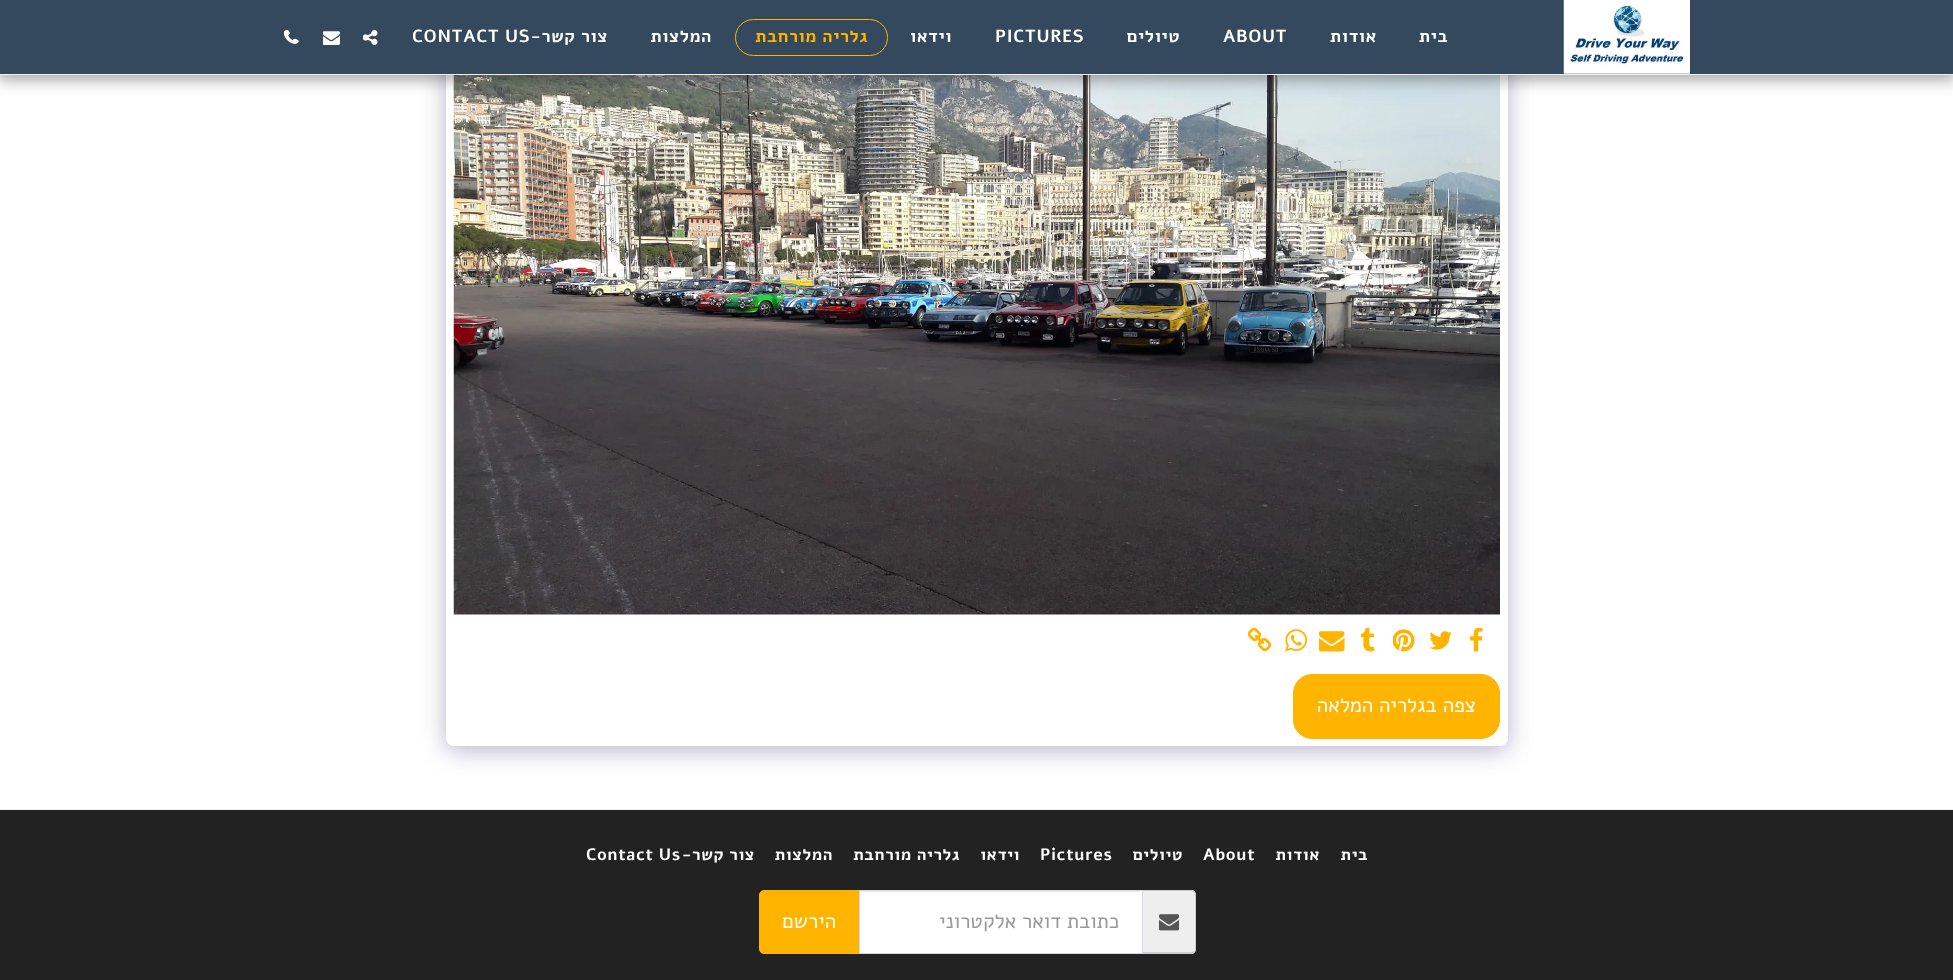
<!DOCTYPE html>
<meta charset="utf-8">
<style>body { margin: 0 } canvas { display: block }</style>
<canvas id="canvas" width="1953" height="980"></canvas>
<img id="img1" src="images/6.png" hidden>
<img id="img2" src="images/1.png" hidden>
<img id="img3" src="images/2.png" hidden>
<img id="img4" src="images/3.png" hidden>
<img id="img5" src="images/4.png" hidden>
<img id="img6" src="images/5.png" hidden>
<img id="img7" src="images/7.png" hidden>
<img id="img8" src="images/8.png" hidden>
<img id="img9" src="images/9.png" hidden>
<img id="img10" src="images/10.png" hidden>
<img id="img11" src="images/11.png" hidden>
<img id="img12" src="images/12.png" hidden>
<img id="img13" src="images/13.png" hidden>
<img id="img14" src="images/14.png" hidden>
<script>
window.onload = function () {
    const canvas = document.getElementById('canvas');
    const context = canvas.getContext('2d');
    context.miterLimit = 4;
    context.fontKerning = 'normal';

    context.fillStyle = 'rgb(255, 255, 255)';
    context.fillRect(0, 0, 1953, 980);
    context.fillStyle = 'rgba(77, 63, 122, 0.4)';
    context.filter = 'blur(12.5px)';
    context.beginPath();
    context.roundRect(446, 23, 1062, 727, 8);
    context.fill();
    context.filter = 'none';
    context.fillStyle = 'rgb(255, 255, 255)';
    context.beginPath();
    context.roundRect(446, 19, 1062, 727, 8);
    context.fill();
    context.drawImage(document.getElementById('img1'), 453, 75, 1047, 540);
    context.fillStyle = 'rgba(0, 0, 0, 0.35)';
    context.filter = 'blur(7.5px)';
    context.beginPath();
    context.rect(-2, 0, 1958, 80);
    context.fill();
    context.filter = 'none';
    context.fillStyle = 'rgb(52, 73, 94)';
    context.fillRect(0, 0, 1953, 74);
    context.fillStyle = 'rgb(243, 238, 238)';
    context.fillRect(0, 74, 1953, 1);
    context.drawImage(document.getElementById('img2'), 1563, 0, 127, 74);
    context.beginPath();
    context.roundRect(735.5, 19.5, 152, 36, 18);
    context.strokeStyle = 'rgb(255, 180, 0)';
    context.stroke();
    context.drawImage(document.getElementById('img3'), 363, 30, 15, 15);
    context.drawImage(document.getElementById('img4'), 323, 31, 17, 14);
    context.drawImage(document.getElementById('img5'), 284, 30, 14, 14);
    context.drawImage(document.getElementById('img6'), 286, 30, 13, 14);
    context.drawImage(document.getElementById('img7'), 1470, 628, 13, 24);
    context.drawImage(document.getElementById('img8'), 1429, 631, 23, 19);
    context.drawImage(document.getElementById('img9'), 1393, 629, 22, 23);
    context.drawImage(document.getElementById('img10'), 1360, 628, 15, 24);
    context.drawImage(document.getElementById('img11'), 1319, 631, 26, 21);
    context.drawImage(document.getElementById('img12'), 1285, 629, 23, 23);
    context.drawImage(document.getElementById('img13'), 1248, 628, 23, 24);
    context.fillStyle = 'rgb(255, 180, 0)';
    context.beginPath();
    context.roundRect(1293.5, 674.5, 206, 64, 18.5);
    context.fill();
    context.stroke();
    context.fillStyle = 'rgb(243, 238, 238)';
    context.fillRect(0, 809, 1953, 1);
    context.fillStyle = 'rgb(34, 34, 34)';
    context.fillRect(0, 810, 1953, 170);
    context.fillStyle = 'rgb(238, 238, 238)';
    context.beginPath();
    context.roundRect(1143, 890, 53, 64, [0, 5, 5, 0]);
    context.fill();
    context.fillStyle = 'rgb(204, 204, 204)';
    context.beginPath();
    context.moveTo(1142, 890);
    context.lineTo(1191, 890);
    context.bezierCurveTo(1194, 890, 1196, 892, 1196, 895);
    context.lineTo(1196, 949);
    context.bezierCurveTo(1196, 952, 1194, 954, 1191, 954);
    context.lineTo(1142, 954);
    context.closePath();
    context.moveTo(1142, 891);
    context.lineTo(1191, 891);
    context.bezierCurveTo(1193, 891, 1195, 893, 1195, 895);
    context.lineTo(1195, 949);
    context.bezierCurveTo(1195, 951, 1193, 952, 1191, 952);
    context.lineTo(1142, 952);
    context.closePath();
    context.fill('evenodd');
    context.drawImage(document.getElementById('img14'), 1159, 914, 20, 17);
    context.fillStyle = 'rgb(255, 255, 255)';
    context.fillRect(860, 891, 282, 62);
    context.fillStyle = 'rgb(236, 236, 236)';
    context.fillRect(860, 891, 281, 1);
    context.fillStyle = 'rgb(255, 180, 0)';
    context.beginPath();
    context.roundRect(759.5, 890.5, 100, 63, [4.5, 0, 0, 4.5]);
    context.fill();
    context.stroke();
    context.strokeStyle = 'rgb(212, 215, 229)';
    context.strokeRect(859.5, 890.5, 283, 63);
    context.letterSpacing = '0.6px';
    context.direction = 'rtl';
    context.font = 'bold 17.5px Alef';
    context.fillStyle = 'rgb(255, 255, 255)';
    context.fillText('בית', 1448, 42);
    context.fillText('אודות', 1377, 42);
    context.direction = 'ltr';
    context.fillText('ABOUT', 1223, 42);
    context.direction = 'rtl';
    context.fillText('טיולים', 1180, 42);
    context.direction = 'ltr';
    context.fillText('PICTURES', 995, 42);
    context.direction = 'rtl';
    context.fillText('וידאו', 952, 42);
    context.fillStyle = 'rgb(255, 180, 0)';
    context.fillText('גלריה מורחבת', 868, 42);
    context.fillStyle = 'rgb(255, 255, 255)';
    context.fillText('המלצות', 712, 42);
    context.fillText('צור קשר-', 608, 42);
    context.direction = 'ltr';
    context.fillText('CONTACT US', 412, 42);
    context.letterSpacing = '0px';
    context.direction = 'rtl';
    context.font = '20.6px Alef';
    context.fillText('צפה בגלריה המלאה', 1476, 712);
    context.letterSpacing = '0.6px';
    context.font = 'bold 16.5px Alef';
    context.fillText('בית', 1368, 860);
    context.fillText('אודות', 1320, 860);
    context.direction = 'ltr';
    context.fillText('About', 1203, 860);
    context.direction = 'rtl';
    context.fillText('טיולים', 1183, 860);
    context.direction = 'ltr';
    context.fillText('Pictures', 1040, 860);
    context.direction = 'rtl';
    context.fillText('וידאו', 1020, 860);
    context.fillText('גלריה מורחבת', 960, 860);
    context.fillText('המלצות', 833, 860);
    context.fillText('צור קשר-', 755, 860);
    context.direction = 'ltr';
    context.fillText('Contact Us', 586, 860);
    context.letterSpacing = '0px';
    context.direction = 'rtl';
    context.font = '20.6px Alef';
    context.fillStyle = 'rgb(153, 153, 153)';
    context.fillText('כתובת דואר אלקטרוני', 1119, 928);
    context.fillStyle = 'rgb(255, 255, 255)';
    context.fillText('הירשם', 836, 928);
};
</script>
